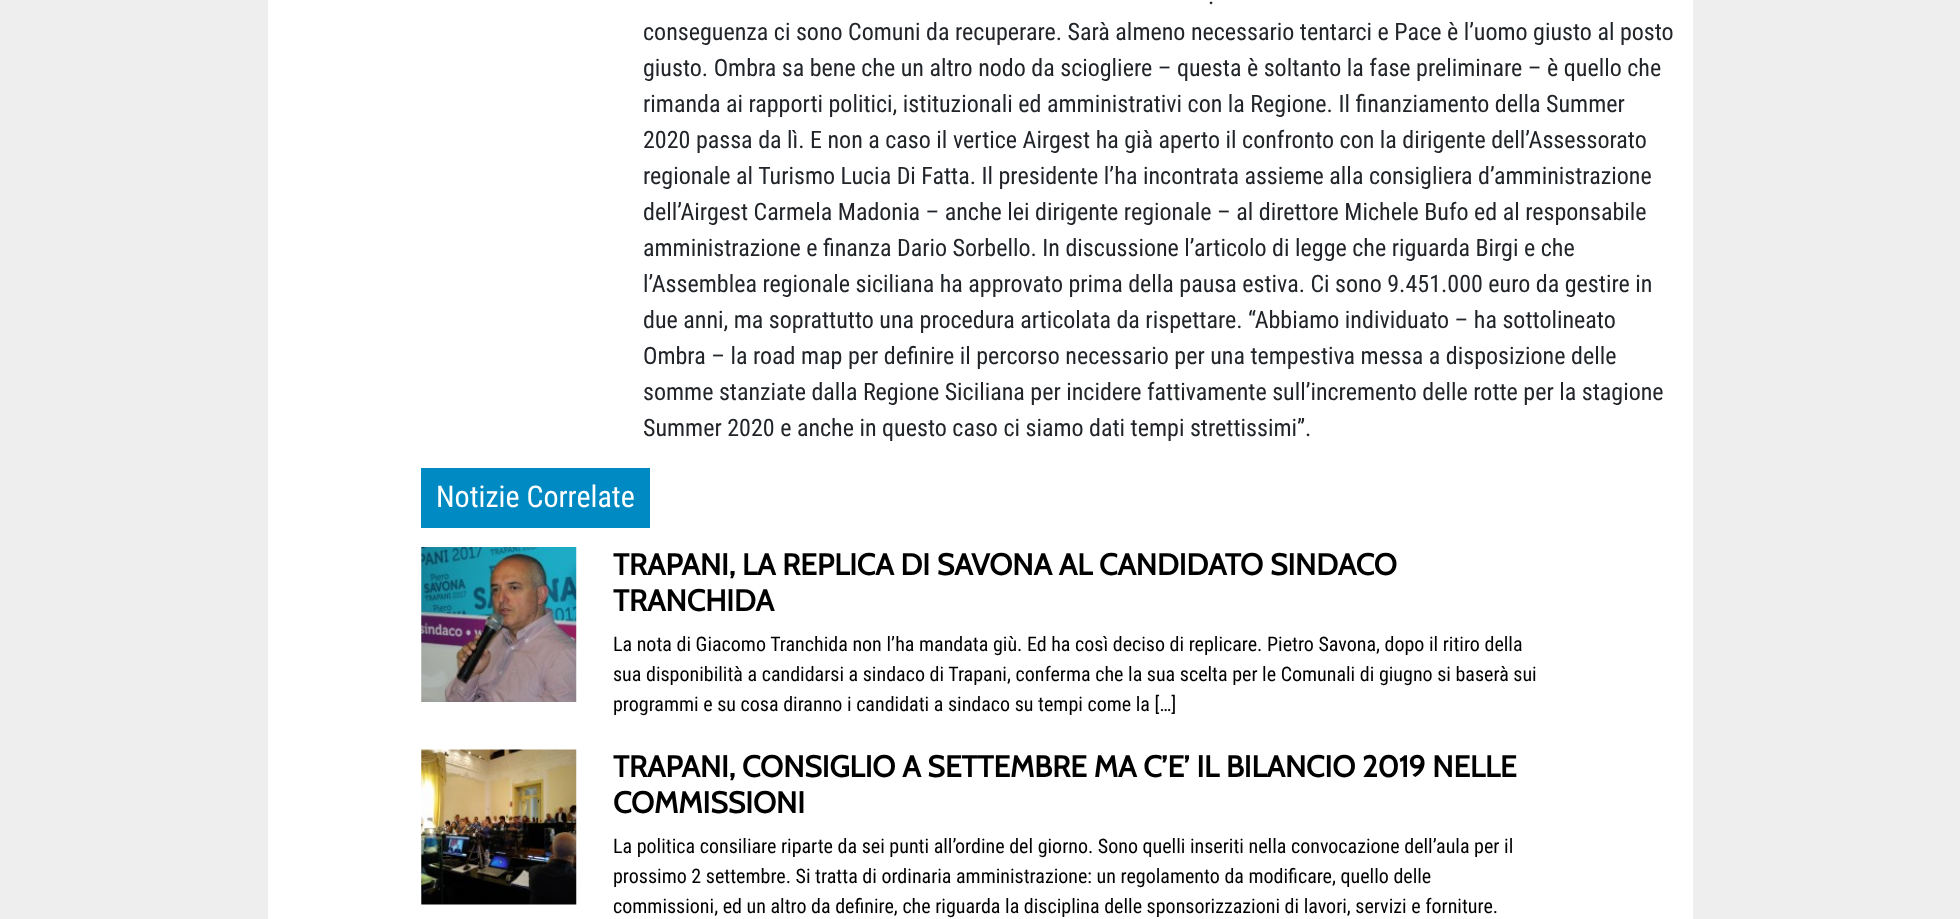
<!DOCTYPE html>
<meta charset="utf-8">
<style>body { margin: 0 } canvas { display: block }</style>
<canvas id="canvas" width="1960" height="919"></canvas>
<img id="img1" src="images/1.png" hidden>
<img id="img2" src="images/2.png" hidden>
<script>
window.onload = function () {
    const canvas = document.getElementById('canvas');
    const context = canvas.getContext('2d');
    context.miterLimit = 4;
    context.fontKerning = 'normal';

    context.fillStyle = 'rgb(238, 238, 238)';
    context.fillRect(0, 0, 1960, 919);
    context.fillStyle = 'rgb(255, 255, 255)';
    context.fillRect(268, 0, 1425, 919);
    context.fillStyle = 'rgb(0, 138, 195)';
    context.fillRect(421, 468, 229, 60);
    context.drawImage(document.getElementById('img1'), 421, 547, 156, 155);
    context.drawImage(document.getElementById('img2'), 421, 749, 156, 156);
    context.font = '24px Roboto Condensed';
    context.fillStyle = 'rgb(33, 37, 41)';
    context.fillText('.', 1208, 4);
    context.fillText('conseguenza ci sono Comuni da recuperare. Sarà almeno necessario tentarci e Pace è l’uomo giusto al posto', 643, 40);
    context.fillText('giusto. Ombra sa bene che un altro nodo da sciogliere – questa è soltanto la fase preliminare – è quello che', 643, 76);
    context.fillText('rimanda ai rapporti politici, istituzionali ed amministrativi con la Regione. Il finanziamento della Summer', 643, 112);
    context.fillText('2020 passa da lì. E non a caso il vertice Airgest ha già aperto il confronto con la dirigente dell’Assessorato', 643, 148);
    context.fillText('regionale al Turismo Lucia Di Fatta. Il presidente l’ha incontrata assieme alla consigliera d’amministrazione', 643, 184);
    context.fillText('dell’Airgest Carmela Madonia – anche lei dirigente regionale – al direttore Michele Bufo ed al responsabile', 643, 220);
    context.fillText('amministrazione e finanza Dario Sorbello. In discussione l’articolo di legge che riguarda Birgi e che', 643, 256);
    context.fillText('l’Assemblea regionale siciliana ha approvato prima della pausa estiva. Ci sono 9.451.000 euro da gestire in', 643, 292);
    context.fillText('due anni, ma soprattutto una procedura articolata da rispettare. “Abbiamo individuato – ha sottolineato', 643, 328);
    context.fillText('Ombra – la road map per definire il percorso necessario per una tempestiva messa a disposizione delle', 643, 364);
    context.fillText('somme stanziate dalla Regione Siciliana per incidere fattivamente sull’incremento delle rotte per la stagione', 643, 400);
    context.fillText('Summer 2020 e anche in questo caso ci siamo dati tempi strettissimi”.', 643, 436);
    context.font = '30px Roboto Condensed';
    context.fillStyle = 'rgb(255, 255, 255)';
    context.fillText('Notizie Correlate', 436, 507);
    context.font = 'bold 30px Cabin';
    context.fillStyle = 'rgb(0, 0, 0)';
    context.fillText('TRAPANI, LA REPLICA DI SAVONA AL CANDIDATO SINDACO', 613, 575);
    context.fillText('TRANCHIDA', 613, 611);
    context.font = '20px Roboto Condensed';
    context.fillText('La nota di Giacomo Tranchida non l’ha mandata giù. Ed ha così deciso di replicare. Pietro Savona, dopo il ritiro della', 613, 651);
    context.fillText('sua disponibilità a candidarsi a sindaco di Trapani, conferma che la sua scelta per le Comunali di giugno si baserà sui', 613, 681);
    context.fillText('programmi e su cosa diranno i candidati a sindaco su tempi come la […]', 613, 711);
    context.font = 'bold 30px Cabin';
    context.fillText('TRAPANI, CONSIGLIO A SETTEMBRE MA C’E’ IL BILANCIO 2019 NELLE', 613, 777);
    context.fillText('COMMISSIONI', 613, 813);
    context.font = '20px Roboto Condensed';
    context.fillText('La politica consiliare riparte da sei punti all’ordine del giorno. Sono quelli inseriti nella convocazione dell’aula per il', 613, 853);
    context.fillText('prossimo 2 settembre. Si tratta di ordinaria amministrazione: un regolamento da modificare, quello delle', 613, 883);
    context.fillText('commissioni, ed un altro da definire, che riguarda la disciplina delle sponsorizzazioni di lavori, servizi e forniture.', 613, 913);
};
</script>
